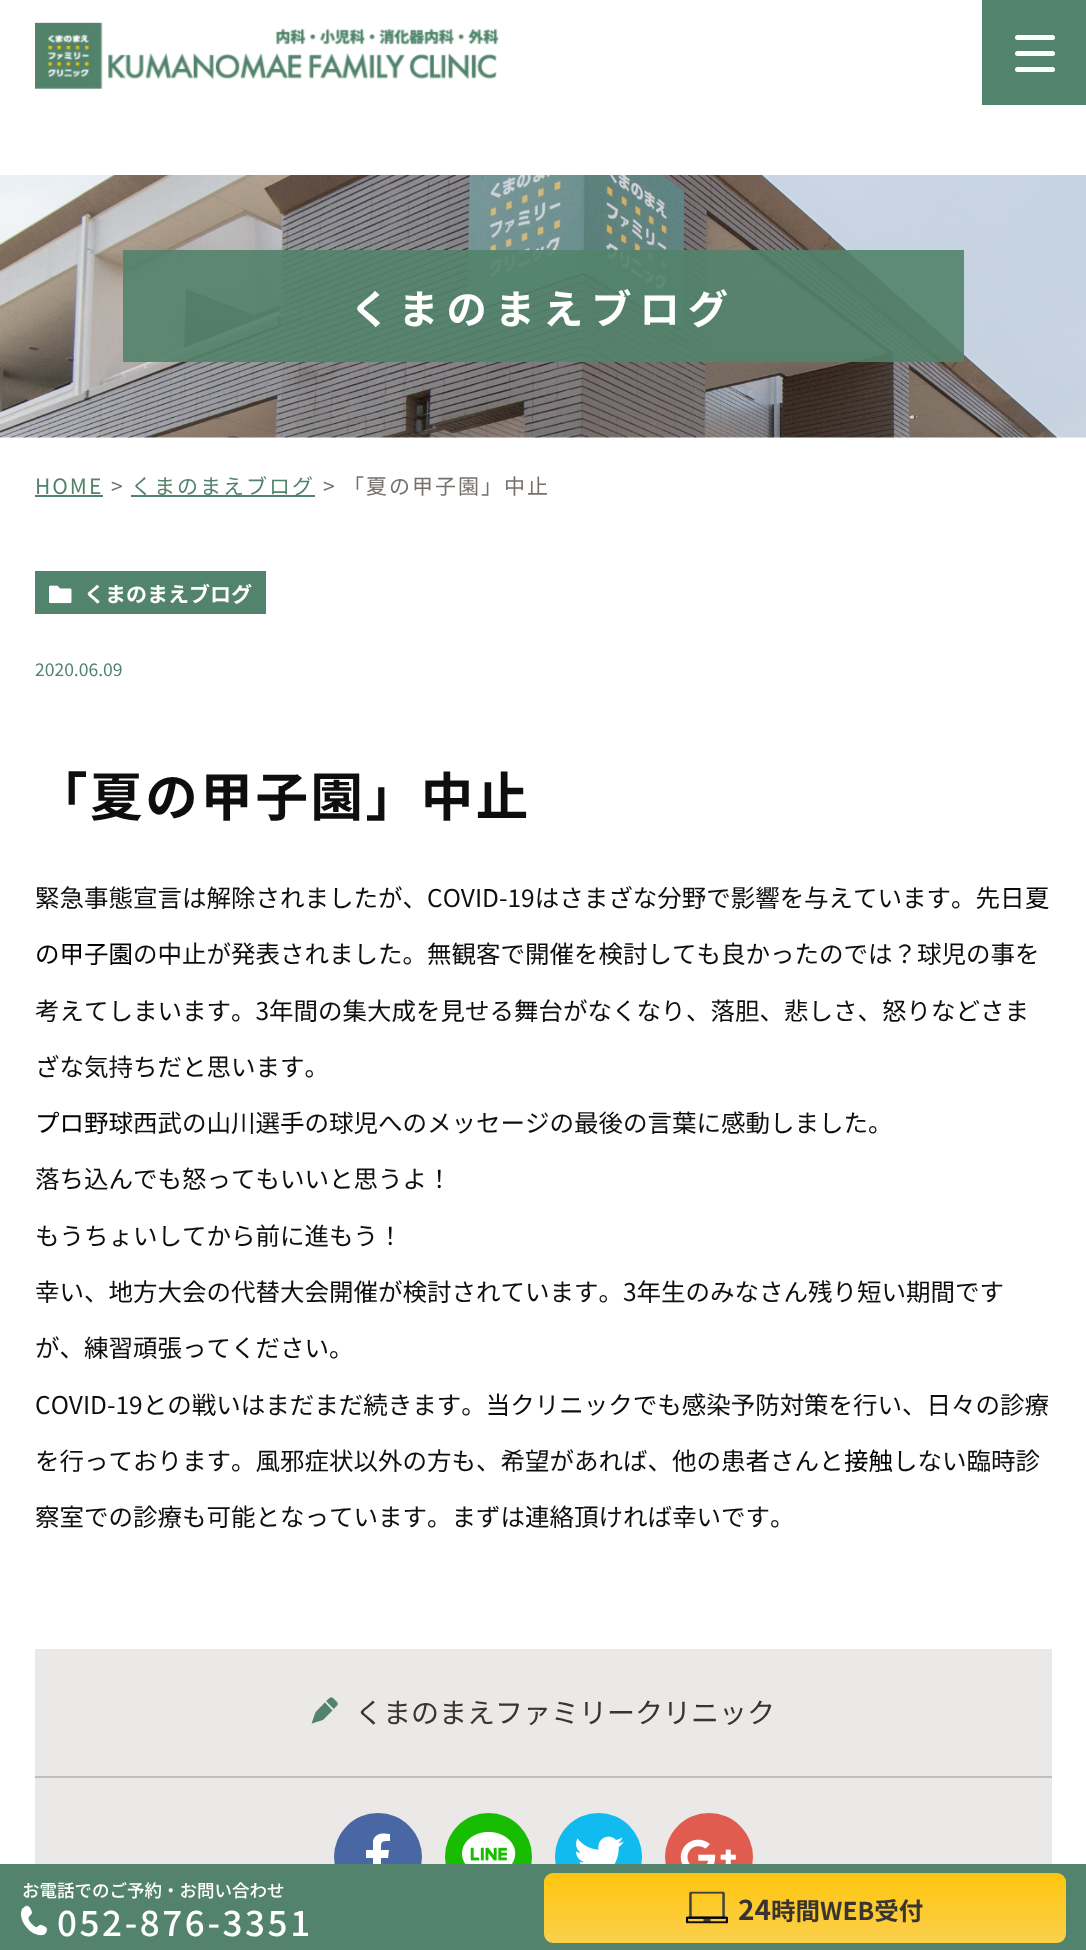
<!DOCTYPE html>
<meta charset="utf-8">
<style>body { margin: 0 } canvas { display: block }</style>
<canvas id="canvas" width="1086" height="1950"></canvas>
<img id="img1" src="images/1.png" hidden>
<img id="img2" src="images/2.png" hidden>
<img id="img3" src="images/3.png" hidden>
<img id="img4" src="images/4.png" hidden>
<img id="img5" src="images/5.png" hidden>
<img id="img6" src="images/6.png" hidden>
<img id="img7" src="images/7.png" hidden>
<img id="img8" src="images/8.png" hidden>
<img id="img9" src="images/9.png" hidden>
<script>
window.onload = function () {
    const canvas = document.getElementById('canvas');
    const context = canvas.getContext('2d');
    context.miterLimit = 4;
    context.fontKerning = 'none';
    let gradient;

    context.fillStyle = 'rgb(255, 255, 255)';
    context.fillRect(0, 0, 1086, 1950);
    context.drawImage(document.getElementById('img1'), 0, 175, 1086, 263);
    context.fillStyle = 'rgba(82, 131, 108, 0.9)';
    context.fillRect(123, 250, 841, 112);
    context.fillStyle = 'rgb(82, 131, 108)';
    context.fillRect(35, 495, 68, 2);
    context.fillRect(131, 495, 184, 2);
    context.fillRect(35, 571, 231, 43);
    context.drawImage(document.getElementById('img2'), 49, 585, 23, 19);
    context.fillStyle = 'rgb(235, 233, 231)';
    context.fillRect(35, 1649, 1017, 215);
    context.fillStyle = 'rgb(191, 190, 189)';
    context.fillRect(35, 1776, 1017, 2);
    context.drawImage(document.getElementById('img3'), 311, 1697, 27, 27);
    context.fillStyle = 'rgb(73, 103, 163)';
    context.beginPath();
    context.arc(378, 1857, 44, 0, 2 * Math.PI);
    context.fill();
    context.fillStyle = 'rgb(255, 255, 255)';
    context.beginPath();
    context.moveTo(390, 1841);
    context.bezierCurveTo(381, 1841, 381, 1841, 381, 1850);
    context.lineTo(389, 1850);
    context.lineTo(388, 1858);
    context.lineTo(381, 1858);
    context.lineTo(381, 1879);
    context.lineTo(373, 1879);
    context.lineTo(373, 1858);
    context.lineTo(366, 1858);
    context.lineTo(366, 1850);
    context.lineTo(373, 1850);
    context.lineTo(373, 1841);
    context.bezierCurveTo(375, 1833, 383, 1833, 390, 1834);
    context.closePath();
    context.fill();
    context.fillStyle = 'rgb(24, 188, 1)';
    context.beginPath();
    context.roundRect(445, 1813, 87, 88, 43.5);
    context.fill();
    context.drawImage(document.getElementById('img4'), 462, 1831, 54, 33);
    context.fillStyle = 'rgb(17, 187, 239)';
    context.beginPath();
    context.roundRect(555, 1813, 87, 88, 43.5);
    context.fill();
    context.drawImage(document.getElementById('img5'), 576, 1836, 48, 28);
    context.fillStyle = 'rgb(224, 92, 79)';
    context.beginPath();
    context.arc(709, 1857, 44, 0, 2 * Math.PI);
    context.fill();
    context.drawImage(document.getElementById('img6'), 680, 1839, 56, 25);
    context.drawImage(document.getElementById('img7'), 35, 22, 464, 67);
    context.fillStyle = 'rgb(82, 131, 108)';
    context.fillRect(982, 0, 104, 105);
    context.fillStyle = 'rgb(255, 255, 255)';
    context.beginPath();
    context.roundRect(1015, 35, 40, 5, 2.5);
    context.fill();
    context.beginPath();
    context.roundRect(1015, 51, 40, 5, 2.5);
    context.fill();
    context.beginPath();
    context.roundRect(1015, 67, 40, 5, 2.5);
    context.fill();
    context.fillStyle = 'rgb(83, 131, 109)';
    context.fillRect(0, 1864, 1086, 86);
    context.drawImage(document.getElementById('img8'), 21, 1905, 27, 31);
    gradient = context.createLinearGradient(805, 1873, 805, 1943);
    gradient.addColorStop(0, 'rgb(255, 197, 13)');
    gradient.addColorStop(1, 'rgb(250, 208, 77)');
    context.fillStyle = gradient;
    context.beginPath();
    context.roundRect(544, 1873, 522, 70, 9);
    context.fill();
    context.drawImage(document.getElementById('img9'), 686, 1891, 42, 33);
    context.letterSpacing = '8px';
    context.font = 'bold 40.25px Noto Sans JP';
    context.fillStyle = 'rgb(255, 255, 255)';
    context.fillText('くまのまえブログ', 350, 324);
    context.letterSpacing = '2px';
    context.font = '21px Noto Sans JP';
    context.fillStyle = 'rgb(82, 131, 108)';
    context.fillText('HOME', 35, 494);
    context.fillStyle = 'rgb(119, 113, 108)';
    context.fillText('>', 111, 494);
    context.fillStyle = 'rgb(82, 131, 108)';
    context.fillText('くまのまえブログ', 131, 494);
    context.fillStyle = 'rgb(119, 113, 108)';
    context.fillText('>', 323, 494);
    context.fillText('「夏の甲子園」中止', 343, 494);
    context.letterSpacing = '0px';
    context.font = 'bold 21px Noto Sans JP';
    context.fillStyle = 'rgb(255, 255, 255)';
    context.fillText('くまのまえブログ', 84, 602);
    context.font = '17.5px Noto Sans JP';
    context.fillStyle = 'rgb(82, 131, 108)';
    context.fillText('2020.06.09', 35, 676);
    context.letterSpacing = '2.6px';
    context.font = 'bold 52.5px Noto Sans JP';
    context.fillStyle = 'rgb(15, 14, 14)';
    context.fillText('「夏の甲子園」中止', 35, 816);
    context.letterSpacing = '0px';
    context.font = '24.5px Noto Sans JP';
    context.fillText('緊急事態宣言は解除されましたが、COVID-19はさまざな分野で影響を与えています', 35, 907);
    context.fillText('。先日', 951, 907);
    context.fillStyle = 'rgb(0, 0, 0)';
    context.fillText('夏', 1025, 907);
    context.fillText('の甲子園', 35, 963);
    context.fillStyle = 'rgb(15, 14, 14)';
    context.fillText('の中止が発表されました。無観客で開催を検討しても良かったのでは？球児の事を', 133, 963);
    context.fillText('考えてしまいます。3年間の集大成を見せる舞台がなくなり', 35, 1020);
    context.fillText('、落胆、悲しさ、怒りなどさま', 686, 1020);
    context.fillText('ざな気持ちだと思います。', 35, 1076);
    context.fillStyle = 'rgb(0, 0, 0)';
    context.fillText('プロ野球', 35, 1132);
    context.fillStyle = 'rgb(15, 14, 14)';
    context.fillText('西武の山川選手の球児へのメッセージの最後の言葉に感動しました。', 133, 1132);
    context.fillText('落ち込んでも怒ってもいいと思うよ！', 35, 1188);
    context.fillText('もうちょいしてから前に進もう！', 35, 1245);
    context.fillText('幸い、地方大会の代替大会開催が検討されています。3年生のみなさん残り短い期間です', 35, 1301);
    context.fillText('が、練習頑張ってください。', 35, 1357);
    context.fillText('COVID-19との戦いはまだまだ続きます。当クリニックでも感染予防対策を行い、日々の診療', 35, 1414);
    context.fillText('を行っております。風邪症状以外の方も', 35, 1470);
    context.fillText('、希望があれば、他の患者さんと', 476, 1470);
    context.fillStyle = 'rgb(0, 0, 0)';
    context.fillText('接触', 844, 1470);
    context.fillStyle = 'rgb(15, 14, 14)';
    context.fillText('しない臨時診', 893, 1470);
    context.fillText('察室での診療も可能となっています。まずは連絡頂ければ幸い', 35, 1526);
    context.fillText('です。', 721, 1526);
    context.font = '28px Noto Sans JP';
    context.fillStyle = 'rgb(55, 52, 49)';
    context.fillText('くまのまえファミリークリニック', 355, 1723);
    context.font = '500 17.5px Noto Sans JP';
    context.fillStyle = 'rgb(255, 255, 255)';
    context.fillText('お電話でのご予約・お問い合わせ', 22, 1897);
    context.letterSpacing = '2.6px';
    context.font = '500 35px Noto Sans JP';
    context.fillText('052-876-3351', 57, 1936);
    context.letterSpacing = '0px';
    context.font = 'bold 28px Noto Sans JP';
    context.fillStyle = 'rgb(55, 52, 49)';
    context.fillText('24', 738, 1920);
    context.font = 'bold 24.5px Noto Sans JP';
    context.fillText('時間WEB受付', 771, 1920);
};
</script>
